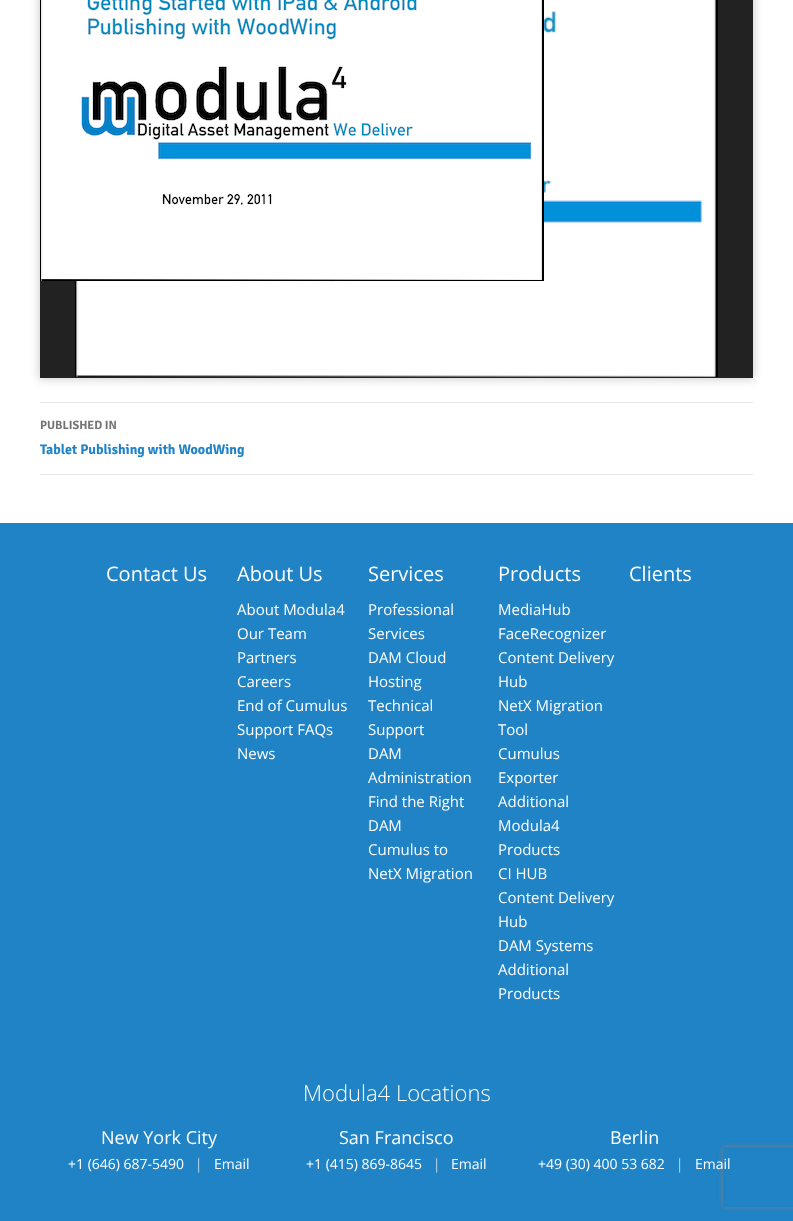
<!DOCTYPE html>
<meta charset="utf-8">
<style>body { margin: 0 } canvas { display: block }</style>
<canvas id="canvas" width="793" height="1221"></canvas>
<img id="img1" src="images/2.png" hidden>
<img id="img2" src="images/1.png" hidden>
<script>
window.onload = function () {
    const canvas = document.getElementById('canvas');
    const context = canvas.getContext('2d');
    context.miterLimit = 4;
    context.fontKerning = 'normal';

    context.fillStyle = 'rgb(255, 255, 255)';
    context.fillRect(0, 0, 793, 1221);
    context.fillStyle = 'rgba(0, 0, 0, 0.2)';
    context.filter = 'blur(5px)';
    context.beginPath();
    context.rect(39, -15, 715, 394);
    context.fill();
    context.filter = 'none';
    context.fillStyle = 'rgb(34, 34, 34)';
    context.fillRect(40, 0, 713, 378);
    context.drawImage(document.getElementById('img1'), 75, 0, 643, 377);
    context.drawImage(document.getElementById('img2'), 40, 0, 504, 281);
    context.fillStyle = 'rgb(230, 230, 230)';
    context.fillRect(40, 402, 713, 1);
    context.fillRect(40, 474, 713, 1);
    context.fillStyle = 'rgb(31, 131, 198)';
    context.fillRect(0, 523, 793, 698);
    context.save();
    context.beginPath();
    context.moveTo(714, 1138);
    context.lineTo(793, 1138);
    context.lineTo(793, 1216);
    context.lineTo(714, 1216);
    context.closePath();
    context.moveTo(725, 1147);
    context.lineTo(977, 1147);
    context.bezierCurveTo(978, 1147, 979, 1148, 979, 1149);
    context.lineTo(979, 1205);
    context.bezierCurveTo(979, 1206, 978, 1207, 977, 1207);
    context.lineTo(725, 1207);
    context.bezierCurveTo(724, 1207, 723, 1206, 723, 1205);
    context.lineTo(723, 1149);
    context.bezierCurveTo(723, 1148, 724, 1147, 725, 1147);
    context.closePath();
    context.clip('evenodd');
    context.fillStyle = 'rgb(128, 128, 128)';
    context.filter = 'blur(2.5px)';
    context.beginPath();
    context.roundRect(723, 1147, 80, 60, 2);
    context.fill();
    context.filter = 'none';
    context.restore();
    context.font = 'bold 12px Signika Negative';
    context.fillStyle = 'rgb(118, 118, 118)';
    context.fillText('PUBLISHED IN', 40, 429);
    context.font = 'bold 14px Signika Negative';
    context.fillStyle = 'rgb(31, 131, 198)';
    context.fillText('Tablet Publishing with WoodWing', 40, 454);
    context.font = '20px Open Sans';
    context.fillStyle = 'rgb(255, 255, 255)';
    context.fillText('Contact Us', 106, 581);
    context.fillText('About Us', 237, 581);
    context.font = '15px Open Sans';
    context.fillText('About Modula4', 237, 615);
    context.fillText('Our Team', 237, 639);
    context.fillText('Partners', 237, 663);
    context.fillText('Careers', 237, 687);
    context.fillText('End of Cumulus', 237, 711);
    context.fillText('Support FAQs', 237, 735);
    context.fillText('News', 237, 759);
    context.font = '20px Open Sans';
    context.fillText('Services', 368, 581);
    context.font = '15px Open Sans';
    context.fillText('Professional', 368, 615);
    context.fillText('Services', 368, 639);
    context.fillText('DAM Cloud', 368, 663);
    context.fillText('Hosting', 368, 687);
    context.fillText('Technical', 368, 711);
    context.fillText('Support', 368, 735);
    context.fillText('DAM', 368, 759);
    context.fillText('Administration', 368, 783);
    context.fillText('Find the Right', 368, 807);
    context.fillText('DAM', 368, 831);
    context.fillText('Cumulus to', 368, 855);
    context.fillText('NetX Migration', 368, 879);
    context.font = '20px Open Sans';
    context.fillText('Products', 498, 581);
    context.font = '15px Open Sans';
    context.fillText('MediaHub', 498, 615);
    context.fillText('FaceRecognizer', 498, 639);
    context.fillText('Content Delivery', 498, 663);
    context.fillText('Hub', 498, 687);
    context.fillText('NetX Migration', 498, 711);
    context.fillText('Tool', 498, 735);
    context.fillText('Cumulus', 498, 759);
    context.fillText('Exporter', 498, 783);
    context.fillText('Additional', 498, 807);
    context.fillText('Modula4', 498, 831);
    context.fillText('Products', 498, 855);
    context.fillText('CI HUB', 498, 879);
    context.fillText('Content Delivery', 498, 903);
    context.fillText('Hub', 498, 927);
    context.fillText('DAM Systems', 498, 951);
    context.fillText('Additional', 498, 975);
    context.fillText('Products', 498, 999);
    context.font = '20px Open Sans';
    context.fillText('Clients', 629, 581);
    context.font = '300 22px Open Sans';
    context.fillText('Modula4 Locations', 303, 1101);
    context.font = '18px Open Sans';
    context.fillText('New York City', 101, 1144);
    context.font = '14px Open Sans';
    context.fillText('+1 (646) 687-5490', 68, 1169);
    context.font = '300 14px Open Sans';
    context.fillText('|', 195, 1169);
    context.font = '14px Open Sans';
    context.fillText('Email', 214, 1169);
    context.font = '18px Open Sans';
    context.fillText('San Francisco', 339, 1144);
    context.font = '14px Open Sans';
    context.fillText('+1 (415) 869-8645', 306, 1169);
    context.font = '300 14px Open Sans';
    context.fillText('|', 433, 1169);
    context.font = '14px Open Sans';
    context.fillText('Email', 451, 1169);
    context.font = '18px Open Sans';
    context.fillText('Berlin', 610, 1144);
    context.font = '14px Open Sans';
    context.fillText('+49 (30) 400 53 682', 538, 1169);
    context.font = '300 14px Open Sans';
    context.fillText('|', 676, 1169);
    context.font = '14px Open Sans';
    context.fillText('Email', 695, 1169);
};
</script>
